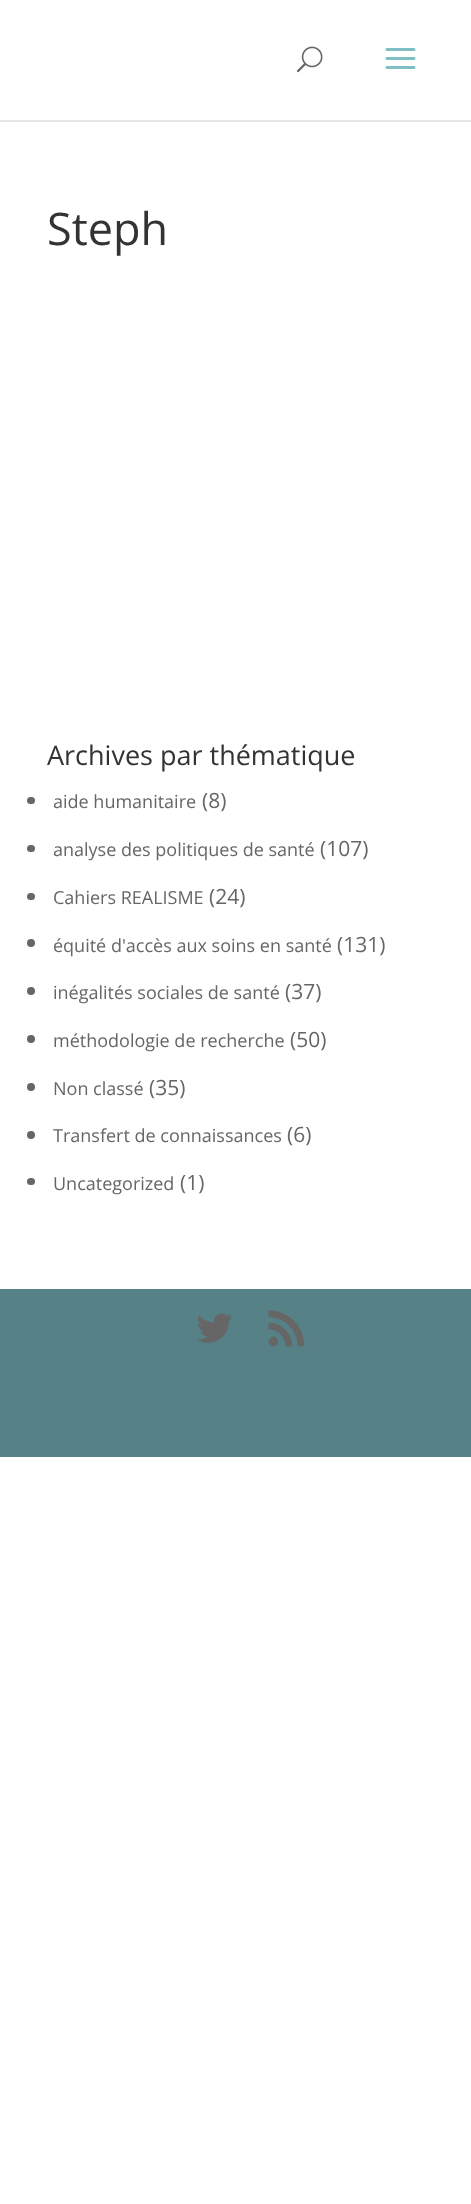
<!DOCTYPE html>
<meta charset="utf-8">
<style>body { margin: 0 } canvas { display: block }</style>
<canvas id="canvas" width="471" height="2204"></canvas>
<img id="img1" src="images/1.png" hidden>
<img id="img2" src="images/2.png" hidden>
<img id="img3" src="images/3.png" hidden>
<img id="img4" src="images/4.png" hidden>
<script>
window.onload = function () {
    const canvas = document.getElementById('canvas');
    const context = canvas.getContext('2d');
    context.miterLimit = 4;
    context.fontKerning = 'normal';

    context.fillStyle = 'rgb(255, 255, 255)';
    context.fillRect(0, 0, 471, 2204);
    context.fillStyle = 'rgb(230, 230, 230)';
    context.fillRect(0, 120, 471, 2);
    context.drawImage(document.getElementById('img1'), 296, 46, 27, 27);
    context.drawImage(document.getElementById('img2'), 385, 48, 31, 21);
    context.fillStyle = 'rgb(102, 102, 102)';
    context.beginPath();
    context.roundRect(27, 797, 8, 7, 3.5);
    context.fill();
    context.beginPath();
    context.roundRect(27, 845, 8, 7, 3.5);
    context.fill();
    context.beginPath();
    context.roundRect(27, 893, 8, 7, 3.5);
    context.fill();
    context.beginPath();
    context.arc(31, 943, 4, 0, 2 * Math.PI);
    context.fill();
    context.beginPath();
    context.arc(31, 991, 4, 0, 2 * Math.PI);
    context.fill();
    context.beginPath();
    context.arc(31, 1039, 4, 0, 2 * Math.PI);
    context.fill();
    context.beginPath();
    context.arc(31, 1087, 4, 0, 2 * Math.PI);
    context.fill();
    context.beginPath();
    context.arc(31, 1135, 4, 0, 2 * Math.PI);
    context.fill();
    context.beginPath();
    context.roundRect(27, 1178, 8, 7, 3.5);
    context.fill();
    context.fillStyle = 'rgb(86, 129, 134)';
    context.fillRect(0, 1289, 471, 168);
    context.drawImage(document.getElementById('img3'), 197, 1313, 35, 30);
    context.drawImage(document.getElementById('img4'), 268, 1310, 37, 37);
    context.font = '45px Open Sans';
    context.fillStyle = 'rgb(51, 51, 51)';
    context.fillText('Steph', 47, 245);
    context.font = '27px Open Sans';
    context.fillText('Archives par thématique', 47, 765);
    context.font = '18px Open Sans';
    context.fillStyle = 'rgb(102, 102, 102)';
    context.fillText('aide humanitaire', 53, 808);
    context.font = '21px Open Sans';
    context.fillText('(8)', 202, 808);
    context.font = '18px Open Sans';
    context.fillText('analyse des politiques de santé', 53, 856);
    context.font = '21px Open Sans';
    context.fillText('(107)', 320, 856);
    context.font = '18px Open Sans';
    context.fillText('Cahiers REALISME', 53, 904);
    context.font = '21px Open Sans';
    context.fillText('(24)', 209, 904);
    context.font = '18px Open Sans';
    context.fillText('équité d\'accès aux soins en santé', 53, 952);
    context.font = '21px Open Sans';
    context.fillText('(131)', 337, 952);
    context.font = '18px Open Sans';
    context.fillText('inégalités sociales de santé', 53, 999);
    context.font = '21px Open Sans';
    context.fillText('(37)', 285, 999);
    context.font = '18px Open Sans';
    context.fillText('méthodologie de recherche', 53, 1047);
    context.font = '21px Open Sans';
    context.fillText('(50)', 290, 1047);
    context.font = '18px Open Sans';
    context.fillText('Non classé', 53, 1095);
    context.font = '21px Open Sans';
    context.fillText('(35)', 149, 1095);
    context.font = '18px Open Sans';
    context.fillText('Transfert de connaissances', 53, 1142);
    context.font = '21px Open Sans';
    context.fillText('(6)', 287, 1142);
    context.font = '18px Open Sans';
    context.fillText('Uncategorized', 53, 1190);
    context.font = '21px Open Sans';
    context.fillText('(1)', 180, 1190);
};
</script>
